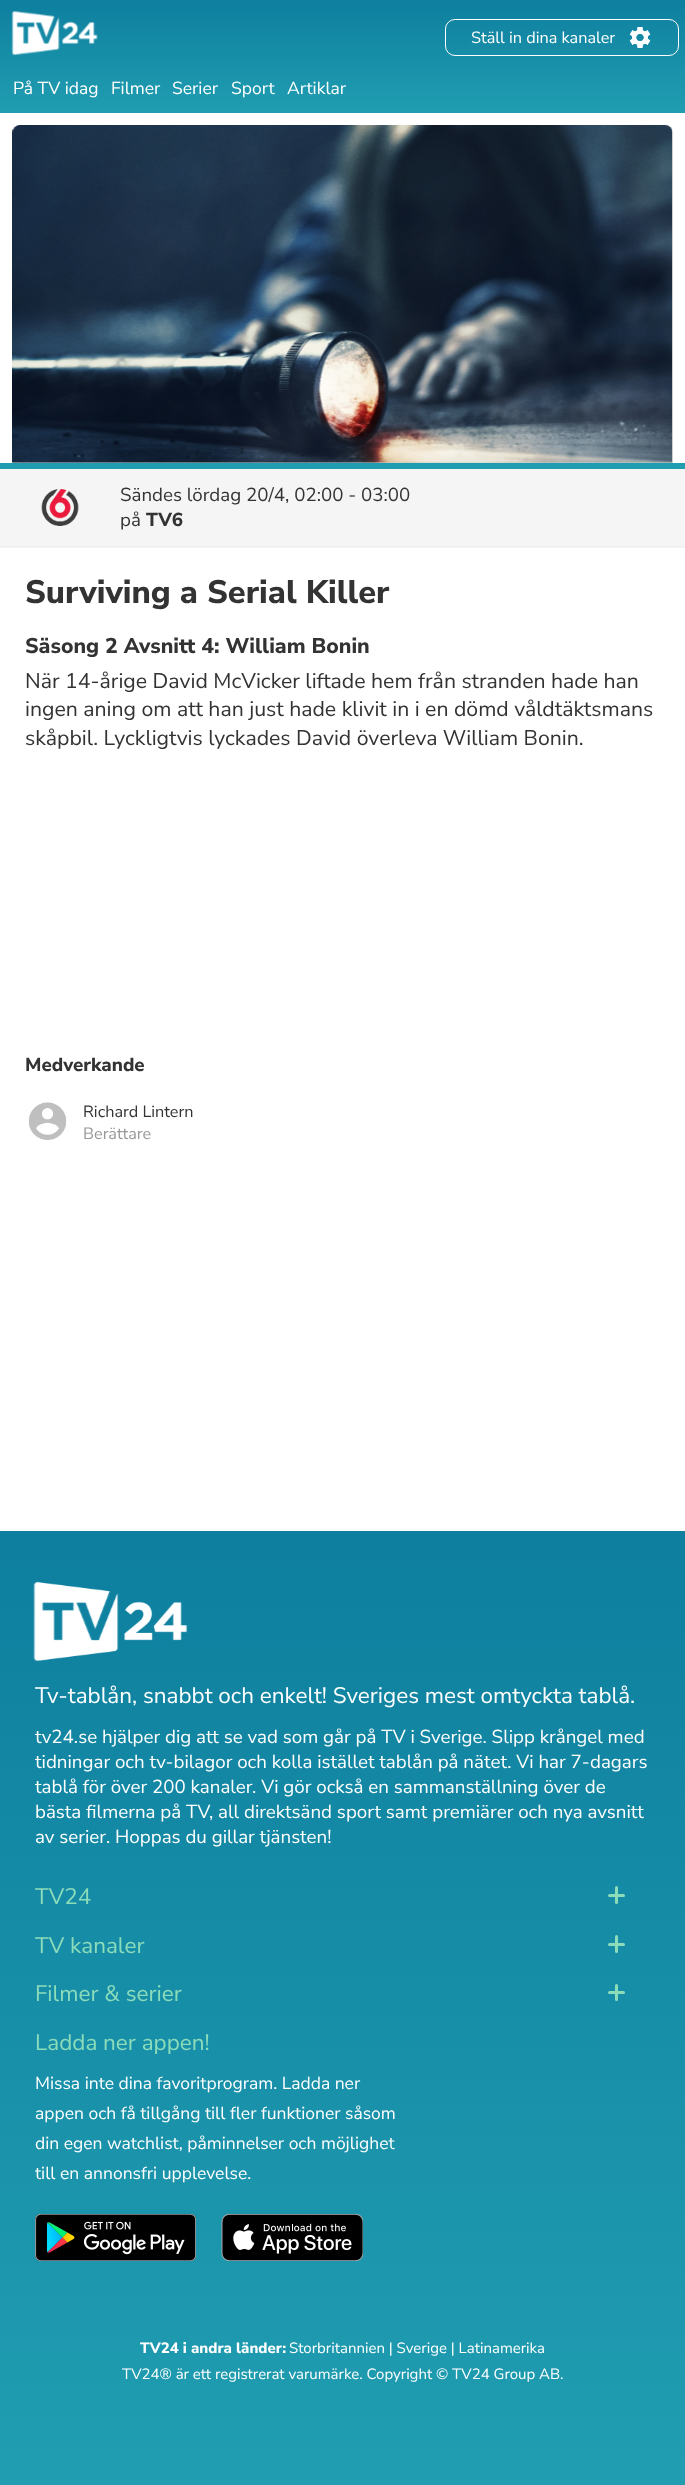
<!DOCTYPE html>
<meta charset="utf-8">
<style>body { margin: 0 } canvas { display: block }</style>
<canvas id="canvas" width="685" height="2485"></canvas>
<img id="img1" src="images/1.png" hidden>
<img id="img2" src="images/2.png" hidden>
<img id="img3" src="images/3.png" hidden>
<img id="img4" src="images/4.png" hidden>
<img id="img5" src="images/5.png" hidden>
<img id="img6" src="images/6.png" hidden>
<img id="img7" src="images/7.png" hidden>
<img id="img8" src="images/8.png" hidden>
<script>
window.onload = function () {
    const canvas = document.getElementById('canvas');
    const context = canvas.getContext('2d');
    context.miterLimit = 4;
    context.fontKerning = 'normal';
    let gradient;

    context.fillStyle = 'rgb(255, 255, 255)';
    context.fillRect(0, 0, 685, 2485);
    gradient = context.createLinearGradient(343, 113, 343, 0);
    gradient.addColorStop(0.02, 'rgb(32, 157, 177)');
    gradient.addColorStop(1, 'rgb(14, 127, 159)');
    context.fillStyle = gradient;
    context.fillRect(0, 0, 685, 113);
    context.drawImage(document.getElementById('img1'), 11, 11, 87, 45);
    context.beginPath();
    context.roundRect(445.5, 19.5, 233, 36, 9.5);
    context.strokeStyle = 'rgb(255, 255, 255)';
    context.stroke();
    context.drawImage(document.getElementById('img2'), 629, 27, 22, 21);
    context.fillStyle = 'rgb(204, 204, 204)';
    context.beginPath();
    context.roundRect(13, 125, 660, 338, [8, 8, 0, 0]);
    context.fill();
    context.drawImage(document.getElementById('img3'), 12, 125, 660, 338);
    context.fillStyle = 'rgb(245, 245, 245)';
    context.fillRect(0, 469, 685, 79);
    context.fillStyle = 'rgb(32, 157, 177)';
    context.fillRect(0, 463, 685, 6);
    context.fillStyle = 'rgb(238, 238, 238)';
    context.fillRect(0, 546, 685, 1);
    context.drawImage(document.getElementById('img4'), 41, 489, 38, 37);
    context.drawImage(document.getElementById('img5'), 28, 1102, 39, 38);
    gradient = context.createLinearGradient(343, 2485, 343, 1531);
    gradient.addColorStop(0.02, 'rgb(32, 157, 177)');
    gradient.addColorStop(1, 'rgb(14, 127, 159)');
    context.fillStyle = gradient;
    context.fillRect(0, 1531, 685, 954);
    context.drawImage(document.getElementById('img6'), 33, 1581, 155, 81);
    context.fillStyle = 'rgb(139, 220, 186)';
    context.beginPath();
    context.roundRect(608, 1894, 17, 3, 1.5);
    context.fill();
    context.beginPath();
    context.roundRect(615, 1886, 3, 18, 1.5);
    context.fill();
    context.beginPath();
    context.roundRect(608, 1943, 17, 3, 1.5);
    context.fill();
    context.beginPath();
    context.roundRect(615, 1935, 3, 18, 1.5);
    context.fill();
    context.beginPath();
    context.roundRect(608, 1991, 17, 3, 1.5);
    context.fill();
    context.beginPath();
    context.roundRect(615, 1984, 3, 17, 1.5);
    context.fill();
    context.drawImage(document.getElementById('img7'), 35, 2214, 161, 47);
    context.drawImage(document.getElementById('img8'), 221, 2214, 142, 47);
    context.font = '16.25px Nunito Sans';
    context.fillStyle = 'rgb(255, 255, 255)';
    context.fillText('Ställ in dina kanaler', 471, 43);
    context.font = '17.5px Nunito Sans';
    context.fillText('På TV idag', 13, 94);
    context.fillText('Filmer', 111, 94);
    context.fillText('Serier', 172, 94);
    context.fillText('Sport', 231, 94);
    context.fillText('Artiklar', 287, 94);
    context.font = '18.75px Nunito Sans';
    context.fillStyle = 'rgb(51, 51, 51)';
    context.fillText('Sändes lördag 20/4, 02:00 - 03:00', 120, 501);
    context.fillText('på', 120, 526);
    context.font = '800 18.75px Nunito Sans';
    context.fillText('TV6', 146, 526);
    context.font = '800 32.5px Nunito Sans';
    context.fillText('Surviving a Serial Killer', 25, 603);
    context.font = '800 21.25px Nunito Sans';
    context.fillText('Säsong 2 Avsnitt 4: William Bonin', 25, 653);
    context.font = '21.25px Nunito Sans';
    context.fillText('När 14-årige David McVicker liftade hem från stranden hade han', 25, 688);
    context.fillText('ingen aning om att han just hade klivit in i en dömd våldtäktsmans', 25, 716);
    context.fillText('skåpbil. Lyckligtvis lyckades David överleva William Bonin.', 25, 745);
    context.font = '800 18.75px Nunito Sans';
    context.fillText('Medverkande', 25, 1071);
    context.font = '16.25px Nunito Sans';
    context.fillText('Richard Lintern', 83, 1117);
    context.fillStyle = 'rgb(153, 153, 153)';
    context.fillText('Berättare', 83, 1139);
    context.font = '22.5px Nunito Sans';
    context.fillStyle = 'rgb(255, 255, 255)';
    context.fillText('Tv-tablån, snabbt och enkelt! Sveriges mest omtyckta tablå.', 35, 1703);
    context.font = '18.75px Nunito Sans';
    context.fillText('tv24.se hjälper dig att se vad som går på TV i Sverige. Slipp krångel med', 35, 1743);
    context.fillText('tidningar och tv-bilagor och kolla istället tablån på nätet. Vi har 7-dagars', 35, 1768);
    context.fillText('tablå för över 200 kanaler. Vi gör också en sammanställning över de', 35, 1793);
    context.fillText('bästa filmerna på TV', 35, 1818);
    context.fillText(', all direktsänd sport samt premiärer och nya avsnitt', 209, 1818);
    context.fillText('av serier', 35, 1843);
    context.fillText('. Hoppas du gillar tjänsten!', 106, 1843);
    context.font = '22.5px Nunito Sans';
    context.fillStyle = 'rgb(139, 220, 186)';
    context.fillText('TV24', 35, 1904);
    context.fillText('TV kanaler', 35, 1953);
    context.fillText('Filmer & serier', 35, 2001);
    context.fillText('Ladda ner appen!', 35, 2050);
    context.font = '17.5px Nunito Sans';
    context.fillStyle = 'rgb(255, 255, 255)';
    context.fillText('Missa inte dina favoritprogram. Ladda ner', 35, 2089);
    context.fillText('appen och få tillgång till fler funktioner såsom', 35, 2119);
    context.fillText('din egen watchlist, påminnelser och möjlighet', 35, 2149);
    context.fillText('till en annonsfri upplevelse.', 35, 2179);
    context.font = '800 15px Nunito Sans';
    context.fillText('TV24 i andra länder:', 140, 2353);
    context.font = '15px Nunito Sans';
    context.fillText('Storbritannien | Sverige | Latinamerika', 289, 2353);
    context.fillText('TV24® är ett registrerat varumärke. Copyright © TV24 Group AB.', 122, 2379);
};
</script>
